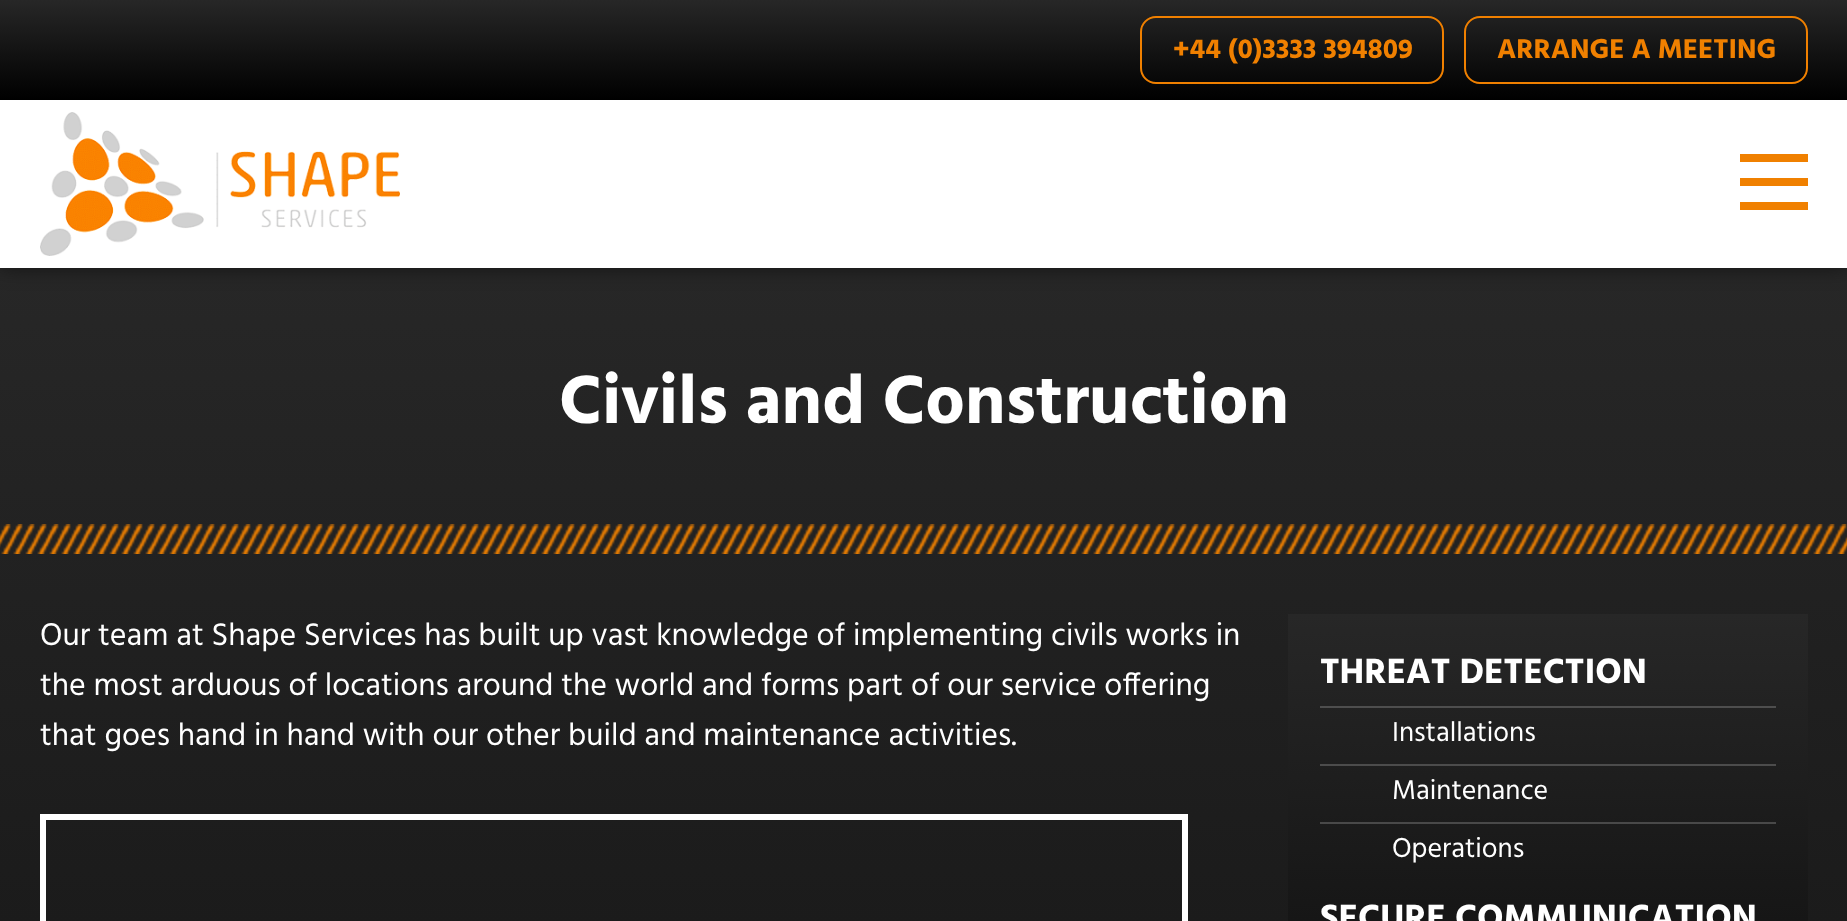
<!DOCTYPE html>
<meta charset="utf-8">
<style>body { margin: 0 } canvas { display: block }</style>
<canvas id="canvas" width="1847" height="921"></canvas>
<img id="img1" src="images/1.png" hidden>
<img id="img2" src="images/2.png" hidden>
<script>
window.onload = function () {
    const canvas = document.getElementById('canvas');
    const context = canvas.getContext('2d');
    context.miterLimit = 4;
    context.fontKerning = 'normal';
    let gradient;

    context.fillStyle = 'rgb(255, 255, 255)';
    context.fillRect(0, 0, 1847, 921);
    gradient = context.createLinearGradient(924, 268, 924, 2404);
    gradient.addColorStop(0, 'rgb(39, 39, 39)');
    gradient.addColorStop(1, 'rgb(0, 0, 0)');
    context.fillStyle = gradient;
    context.fillRect(0, 268, 1847, 653);
    context.fillStyle = 'rgba(0, 0, 0, 0.5)';
    context.filter = 'blur(10px)';
    context.beginPath();
    context.rect(0, 0, 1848, 268);
    context.fill();
    context.filter = 'none';
    context.fillStyle = 'rgb(255, 255, 255)';
    context.fillRect(0, 100, 1847, 168);
    gradient = context.createLinearGradient(924, 0, 924, 100);
    gradient.addColorStop(0, 'rgb(39, 39, 39)');
    gradient.addColorStop(1, 'rgb(0, 0, 0)');
    context.fillStyle = gradient;
    context.fillRect(0, 0, 1847, 100);
    context.beginPath();
    context.roundRect(1141, 17, 302, 66, 15);
    context.strokeStyle = 'rgb(240, 128, 0)';
    context.lineWidth = 2;
    context.stroke();
    context.beginPath();
    context.roundRect(1465, 17, 342, 66, 15);
    context.stroke();
    context.fillStyle = 'rgb(240, 128, 0)';
    context.fillRect(1740, 154, 68, 8);
    context.fillRect(1740, 178, 68, 8);
    context.fillRect(1740, 202, 68, 8);
    context.drawImage(document.getElementById('img1'), 40, 112, 360, 144);
    context.drawImage(document.getElementById('img2'), 0, 524, 1847, 30);
    context.strokeStyle = 'rgb(255, 255, 255)';
    context.lineWidth = 6;
    context.strokeRect(43, 817, 1142, 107);
    gradient = context.createLinearGradient(1548, 614, 1548, 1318);
    gradient.addColorStop(0, 'rgb(39, 39, 39)');
    gradient.addColorStop(1, 'rgb(0, 0, 0)');
    context.fillStyle = gradient;
    context.fillRect(1288, 614, 520, 307);
    context.fillStyle = 'rgb(78, 78, 78)';
    context.fillRect(1320, 706, 456, 2);
    context.fillStyle = 'rgb(76, 76, 76)';
    context.fillRect(1320, 764, 456, 2);
    context.fillStyle = 'rgb(73, 73, 73)';
    context.fillRect(1320, 822, 456, 2);
    context.font = 'bold 28px Hind';
    context.fillStyle = 'rgb(240, 128, 0)';
    context.fillText('+44 (0)3333 394809', 1173, 58);
    context.fillText('ARRANGE A MEETING', 1497, 58);
    context.font = 'bold 70px Hind';
    context.fillStyle = 'rgb(255, 255, 255)';
    context.fillText('Civils and Construction', 559, 423);
    context.font = '32px Hind';
    context.fillText('Our team at Shape Services has built up vast knowledge of implementing civils works in', 40, 645);
    context.fillText('the most arduous of locations around the world and forms part of our service offering', 40, 695);
    context.fillText('that goes hand in hand with our other build and maintenance activities.', 40, 745);
    context.font = 'bold 36px Hind';
    context.fillText('THREAT DETECTION', 1320, 683);
    context.font = '28px Hind';
    context.fillText('Installations', 1392, 741);
    context.fillText('Maintenance', 1392, 799);
    context.fillText('Operations', 1392, 857);
    context.font = 'bold 36px Hind';
    context.fillText('SECURE COMMUNICATION', 1320, 929);
};
</script>
